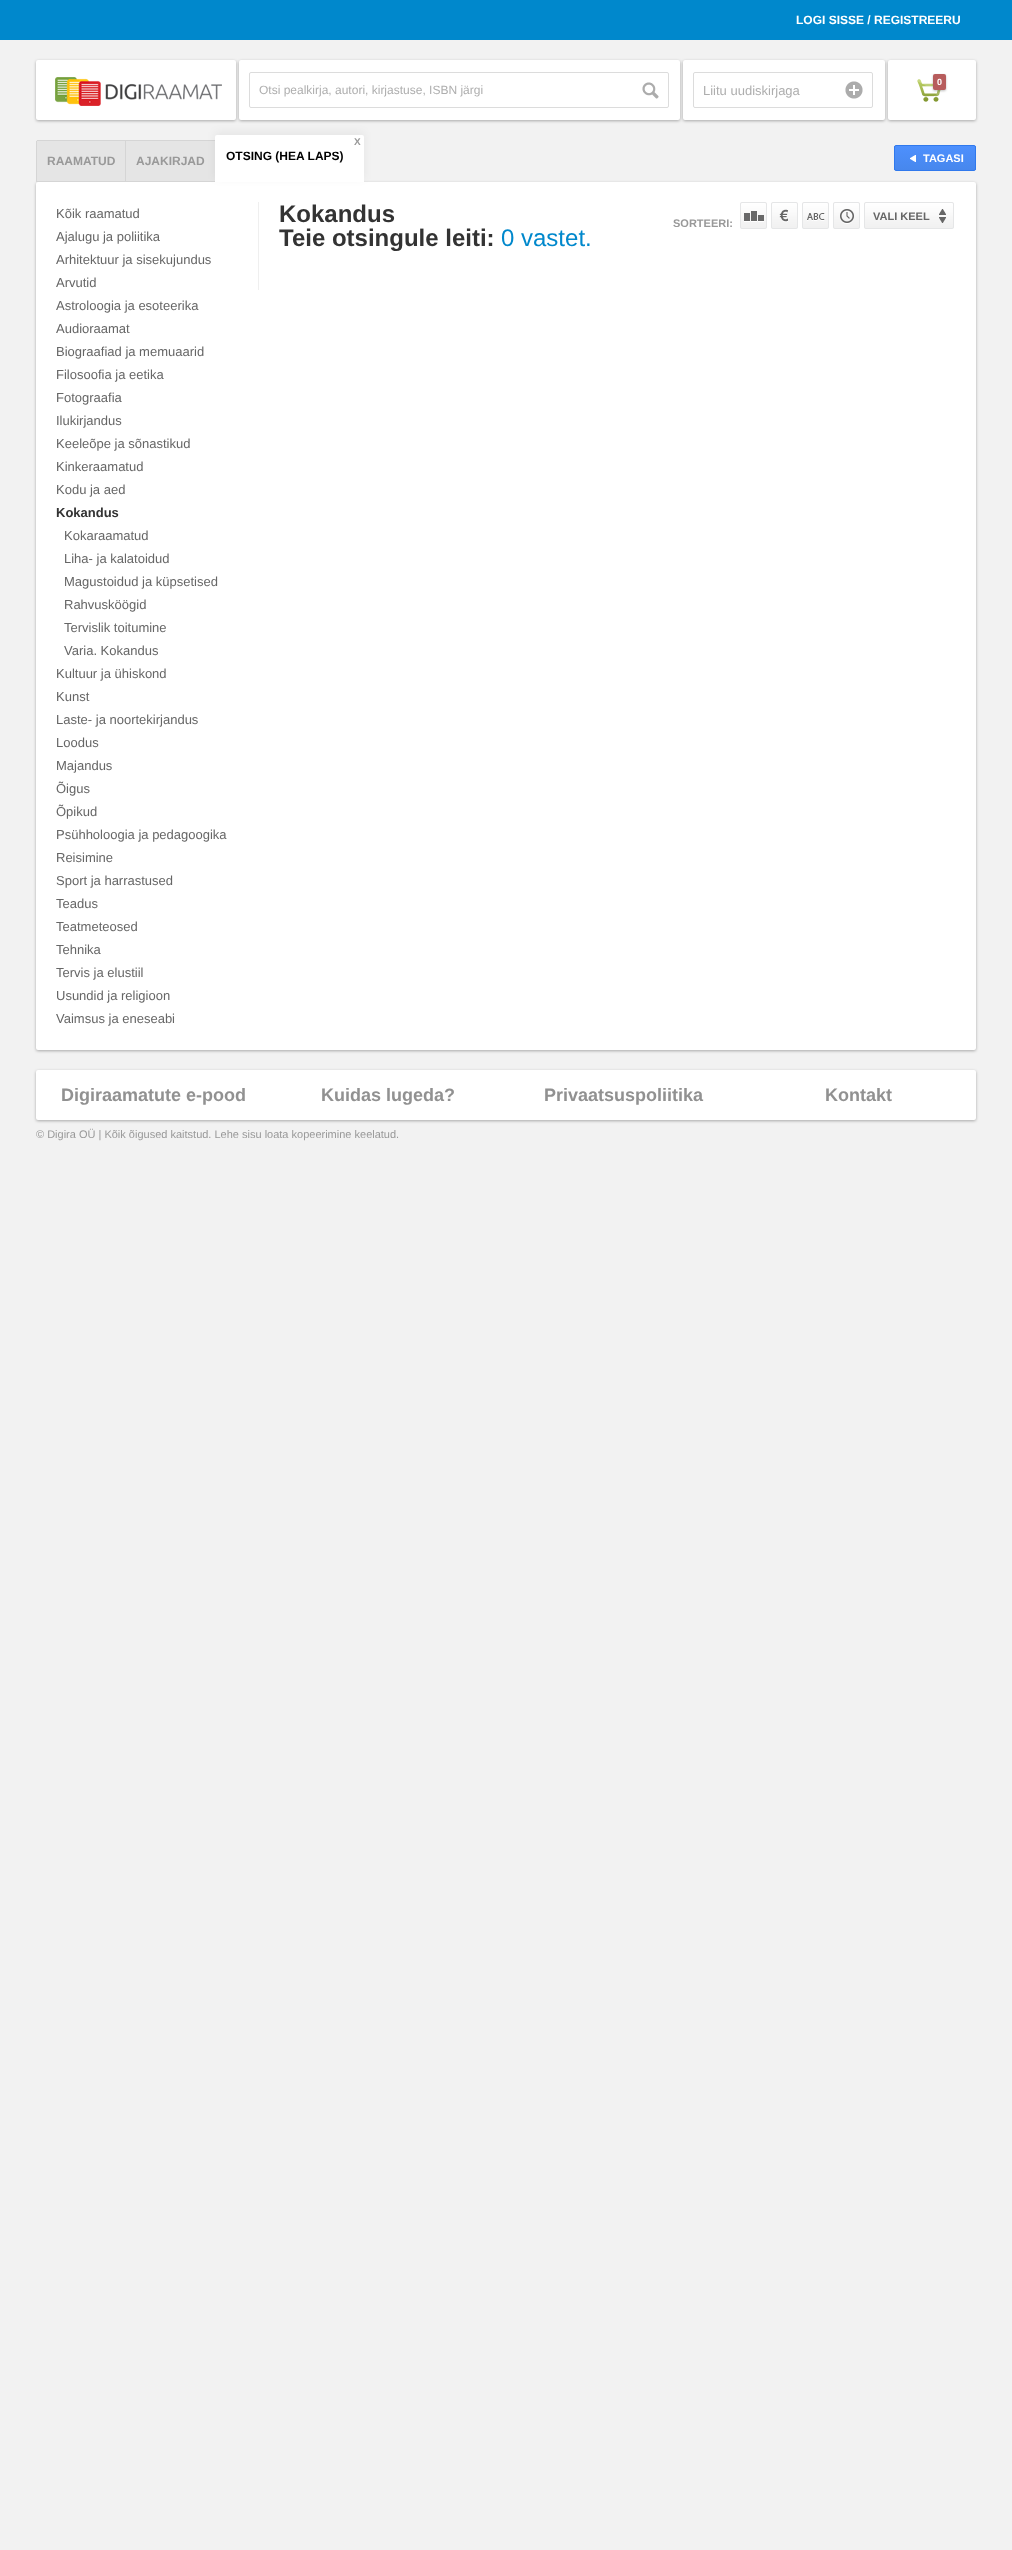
<!DOCTYPE html>
<meta charset="utf-8">
<style>body { margin: 0 } canvas { display: block }</style>
<canvas id="canvas" width="1012" height="2550"></canvas>
<img id="img1" src="images/1.png" hidden>
<img id="img2" src="images/2.png" hidden>
<img id="img3" src="images/3.png" hidden>
<img id="img4" src="images/4.png" hidden>
<img id="img5" src="images/5.png" hidden>
<img id="img6" src="images/6.png" hidden>
<img id="img7" src="images/7.png" hidden>
<img id="img8" src="images/8.png" hidden>
<img id="img9" src="images/9.png" hidden>
<img id="img10" src="images/10.png" hidden>
<script>
window.onload = function () {
    const canvas = document.getElementById('canvas');
    const context = canvas.getContext('2d');
    context.miterLimit = 4;
    context.fontKerning = 'normal';
    let gradient;

    context.fillStyle = 'rgb(242, 242, 242)';
    context.fillRect(0, 0, 1012, 2550);
    context.fillStyle = 'rgb(0, 136, 204)';
    context.fillRect(0, 0, 1012, 40);
    context.fillStyle = 'rgba(0, 0, 0, 0.3)';
    context.filter = 'blur(1.5px)';
    context.beginPath();
    context.roundRect(36, 61, 200, 60, 2);
    context.fill();
    context.filter = 'none';
    context.fillStyle = 'rgb(255, 255, 255)';
    context.beginPath();
    context.roundRect(36, 60, 200, 60, 2);
    context.fill();
    context.drawImage(document.getElementById('img1'), 55, 77, 167, 29);
    context.fillStyle = 'rgba(0, 0, 0, 0.3)';
    context.filter = 'blur(1.5px)';
    context.beginPath();
    context.roundRect(239, 61, 441, 60, 2);
    context.fill();
    context.filter = 'none';
    context.fillStyle = 'rgb(255, 255, 255)';
    context.beginPath();
    context.roundRect(239, 60, 441, 60, 2);
    context.fill();
    context.fillStyle = 'rgba(0, 0, 0, 0.3)';
    context.filter = 'blur(1.5px)';
    context.beginPath();
    context.roundRect(683, 61, 202, 60, 2);
    context.fill();
    context.filter = 'none';
    context.fillStyle = 'rgb(255, 255, 255)';
    context.beginPath();
    context.roundRect(683, 60, 202, 60, 2);
    context.fill();
    context.fillStyle = 'rgba(0, 0, 0, 0.3)';
    context.filter = 'blur(1.5px)';
    context.beginPath();
    context.roundRect(888, 61, 88, 60, 2);
    context.fill();
    context.filter = 'none';
    context.fillStyle = 'rgb(255, 255, 255)';
    context.beginPath();
    context.roundRect(888, 60, 88, 60, 2);
    context.fill();
    context.drawImage(document.getElementById('img2'), 917, 79, 24, 23);
    context.fillStyle = 'rgba(0, 0, 0, 0.25)';
    context.filter = 'blur(1px)';
    context.beginPath();
    context.roundRect(933, 75, 13, 16, 2);
    context.fill();
    context.filter = 'none';
    context.fillStyle = 'rgb(183, 92, 92)';
    context.beginPath();
    context.roundRect(933, 74, 13, 16, 2);
    context.fill();
    context.beginPath();
    context.roundRect(249.5, 72.5, 419, 35, 1.5);
    context.strokeStyle = 'rgb(220, 220, 220)';
    context.stroke();
    context.drawImage(document.getElementById('img3'), 642, 82, 17, 17);
    context.beginPath();
    context.roundRect(693.5, 72.5, 179, 35, 1.5);
    context.stroke();
    context.drawImage(document.getElementById('img4'), 845, 81, 18, 18);
    context.fillStyle = 'rgba(0, 0, 0, 0.3)';
    context.filter = 'blur(1.5px)';
    context.beginPath();
    context.roundRect(36, 183, 940, 868, 2);
    context.fill();
    context.filter = 'none';
    context.fillStyle = 'rgb(229, 229, 229)';
    context.beginPath();
    context.roundRect(36, 140, 89, 42, [2, 0, 0, 0]);
    context.fill();
    context.fillStyle = 'rgb(213, 213, 213)';
    context.fillRect(37, 140, 178, 1);
    context.fillRect(36, 181, 179, 1);
    context.fillRect(36, 141, 1, 41);
    context.fillStyle = 'rgb(229, 229, 229)';
    context.fillRect(126, 141, 89, 40);
    context.fillStyle = 'rgb(213, 213, 213)';
    context.fillRect(125, 140, 1, 42);
    context.fillStyle = 'rgb(255, 255, 255)';
    context.beginPath();
    context.roundRect(36, 182, 940, 868, 2);
    context.fill();
    context.fillStyle = 'rgba(0, 0, 0, 0.05)';
    context.filter = 'blur(4px)';
    context.beginPath();
    context.roundRect(215, 132, 149, 47, 2);
    context.fill();
    context.filter = 'none';
    context.fillStyle = 'rgb(255, 255, 255)';
    context.beginPath();
    context.roundRect(215, 135, 149, 47, [2, 2, 0, 0]);
    context.fill();
    context.fillStyle = 'rgb(239, 239, 239)';
    context.fillRect(258, 202, 1, 88);
    context.drawImage(document.getElementById('img5'), 740, 202, 27, 27);
    context.drawImage(document.getElementById('img6'), 771, 202, 27, 27);
    context.drawImage(document.getElementById('img7'), 802, 202, 27, 27);
    context.drawImage(document.getElementById('img8'), 833, 202, 27, 27);
    context.drawImage(document.getElementById('img9'), 864, 202, 90, 27);
    context.save();
    context.beginPath();
    context.roundRect(894, 145, 82, 26, 2);
    context.clip();
    gradient = context.createLinearGradient(935, 146, 935, 170);
    gradient.addColorStop(0, 'rgb(77, 144, 254)');
    gradient.addColorStop(1, 'rgb(71, 135, 237)');
    context.fillStyle = gradient;
    context.fillRect(894, 146, 82, 24);
    context.restore();
    context.beginPath();
    context.roundRect(894.5, 145.5, 81, 25, 1.5);
    context.strokeStyle = 'rgb(48, 121, 237)';
    context.stroke();
    context.drawImage(document.getElementById('img10'), 910, 155, 6, 7);
    context.fillStyle = 'rgba(0, 0, 0, 0.3)';
    context.filter = 'blur(1.5px)';
    context.beginPath();
    context.roundRect(36, 1071, 940, 50, 2);
    context.fill();
    context.filter = 'none';
    context.fillStyle = 'rgb(255, 255, 255)';
    context.beginPath();
    context.roundRect(36, 1070, 940, 50, 2);
    context.fill();
    context.font = 'bold 12px Liberation Sans';
    context.fillText('LOGI SISSE / REGISTREERU', 796, 24);
    context.font = 'bold 9px Liberation Sans';
    context.fillText('0', 937, 85);
    context.font = '12px Liberation Sans';
    context.fillStyle = 'rgb(174, 174, 174)';
    context.fillText('Otsi pealkirja, autori, kirjastuse, ISBN järgi', 259, 94);
    context.font = '13px Liberation Sans';
    context.fillText('Liitu uudiskirjaga', 703, 95);
    context.font = 'bold 12px Liberation Sans';
    context.fillStyle = 'rgb(153, 153, 153)';
    context.fillText('RAAMATUD', 47, 165);
    context.fillText('AJAKIRJAD', 136, 165);
    context.font = 'bold 10px Liberation Sans';
    context.fillText('X', 354, 145);
    context.font = 'bold 12px Liberation Sans';
    context.fillStyle = 'rgb(0, 0, 0)';
    context.fillText('OTSING (HEA LAPS)', 226, 160);
    context.font = '13px Liberation Sans';
    context.fillStyle = 'rgb(102, 102, 102)';
    context.fillText('Kõik raamatud', 56, 218);
    context.fillText('Ajalugu ja poliitika', 56, 241);
    context.fillText('Arhitektuur ja sisekujundus', 56, 264);
    context.fillText('Arvutid', 56, 287);
    context.fillText('Astroloogia ja esoteerika', 56, 310);
    context.fillText('Audioraamat', 56, 333);
    context.fillText('Biograafiad ja memuaarid', 56, 356);
    context.fillText('Filosoofia ja eetika', 56, 379);
    context.fillText('Fotograafia', 56, 402);
    context.fillText('Ilukirjandus', 56, 425);
    context.fillText('Keeleõpe ja sõnastikud', 56, 448);
    context.fillText('Kinkeraamatud', 56, 471);
    context.fillText('Kodu ja aed', 56, 494);
    context.font = 'bold 13px Liberation Sans';
    context.fillStyle = 'rgb(51, 51, 51)';
    context.fillText('Kokandus', 56, 517);
    context.font = '13px Liberation Sans';
    context.fillStyle = 'rgb(102, 102, 102)';
    context.fillText('Kokaraamatud', 64, 540);
    context.fillText('Liha- ja kalatoidud', 64, 563);
    context.fillText('Magustoidud ja küpsetised', 64, 586);
    context.fillText('Rahvusköögid', 64, 609);
    context.fillText('Tervislik toitumine', 64, 632);
    context.fillText('Varia. Kokandus', 64, 655);
    context.fillText('Kultuur ja ühiskond', 56, 678);
    context.fillText('Kunst', 56, 701);
    context.fillText('Laste- ja noortekirjandus', 56, 724);
    context.fillText('Loodus', 56, 747);
    context.fillText('Majandus', 56, 770);
    context.fillText('Õigus', 56, 793);
    context.fillText('Õpikud', 56, 816);
    context.fillText('Psühholoogia ja pedagoogika', 56, 839);
    context.fillText('Reisimine', 56, 862);
    context.fillText('Sport ja harrastused', 56, 885);
    context.fillText('Teadus', 56, 908);
    context.fillText('Teatmeteosed', 56, 931);
    context.fillText('Tehnika', 56, 954);
    context.fillText('Tervis ja elustiil', 56, 977);
    context.fillText('Usundid ja religioon', 56, 1000);
    context.fillText('Vaimsus ja eneseabi', 56, 1023);
    context.font = 'bold 24px Liberation Sans';
    context.fillStyle = 'rgb(51, 51, 51)';
    context.fillText('Kokandus', 279, 222);
    context.fillText('Teie otsingule leiti:', 279, 246);
    context.font = '24px Liberation Sans';
    context.fillStyle = 'rgb(0, 136, 204)';
    context.fillText('0 vastet.', 501, 246);
    context.font = 'bold 11px Liberation Sans';
    context.fillStyle = 'rgb(102, 102, 102)';
    context.fillText('VALI KEEL', 873, 220);
    context.fillStyle = 'rgb(153, 153, 153)';
    context.fillText('SORTEERI:', 673, 227);
    context.fillStyle = 'rgb(255, 255, 255)';
    context.fillText('TAGASI', 923, 162);
    context.font = 'bold 18px Liberation Sans';
    context.fillStyle = 'rgb(145, 145, 145)';
    context.fillText('Digiraamatute e-pood', 61, 1101);
    context.fillText('Kuidas lugeda?', 321, 1101);
    context.fillText('Privaatsuspoliitika', 544, 1101);
    context.fillText('Kontakt', 825, 1101);
    context.font = '11px Liberation Sans';
    context.fillStyle = 'rgb(153, 153, 153)';
    context.fillText('© Digira OÜ | Kõik õigused kaitstud. Lehe sisu loata kopeerimine keelatud.', 36, 1138);
};
</script>
